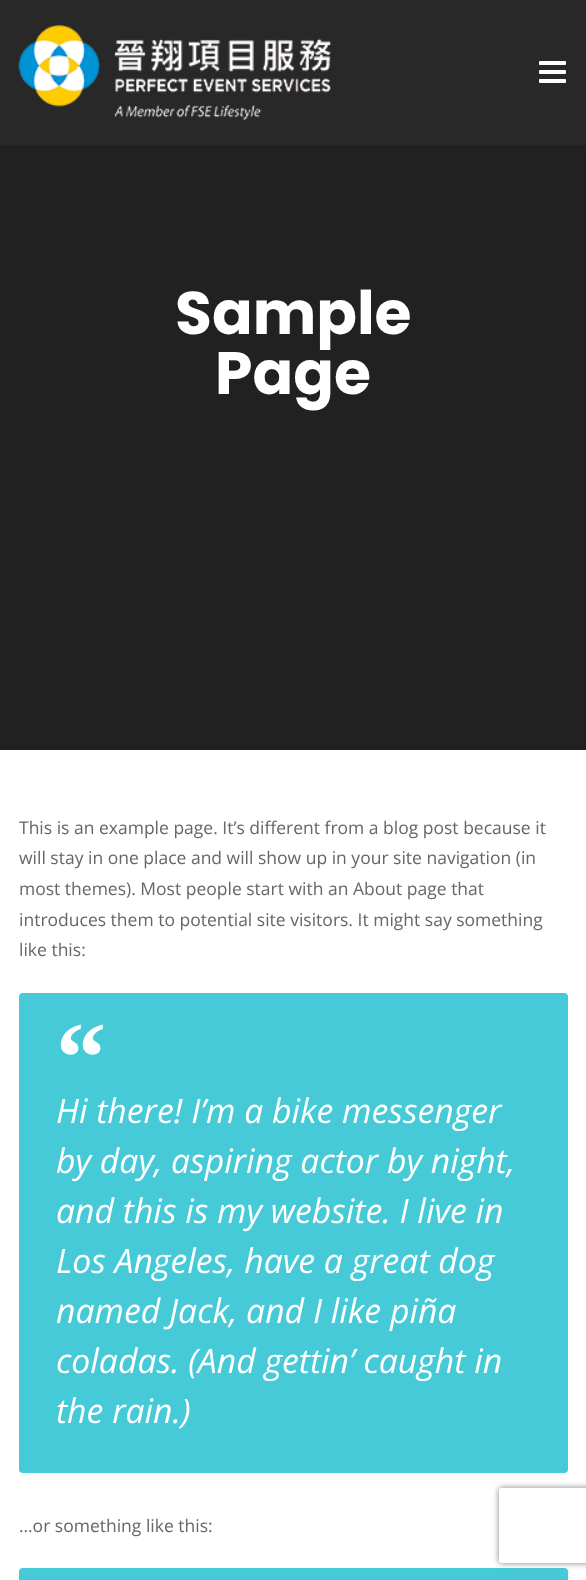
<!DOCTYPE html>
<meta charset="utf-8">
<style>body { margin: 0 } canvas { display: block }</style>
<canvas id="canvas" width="586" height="1580"></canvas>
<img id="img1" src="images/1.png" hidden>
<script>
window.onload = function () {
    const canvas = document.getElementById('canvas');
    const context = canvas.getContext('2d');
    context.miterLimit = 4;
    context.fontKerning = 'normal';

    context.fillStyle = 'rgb(255, 255, 255)';
    context.fillRect(0, 0, 586, 1580);
    context.fillStyle = 'rgb(40, 40, 40)';
    context.fillRect(0, 0, 586, 145);
    context.drawImage(document.getElementById('img1'), 18, 25, 314, 95);
    context.fillStyle = 'rgb(255, 255, 255)';
    context.beginPath();
    context.roundRect(539, 61, 27, 4, 1);
    context.fill();
    context.beginPath();
    context.roundRect(539, 70, 27, 4, 1);
    context.fill();
    context.beginPath();
    context.roundRect(539, 79, 27, 4, 1);
    context.fill();
    context.fillStyle = 'rgb(33, 33, 33)';
    context.fillRect(0, 145, 586, 605);
    context.fillStyle = 'rgb(70, 202, 215)';
    context.beginPath();
    context.roundRect(19, 993, 549, 480, 4);
    context.fill();
    context.beginPath();
    context.roundRect(19, 1568, 549, 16, 4);
    context.fill();
    context.save();
    context.beginPath();
    context.moveTo(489, 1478);
    context.lineTo(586, 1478);
    context.lineTo(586, 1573);
    context.lineTo(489, 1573);
    context.closePath();
    context.moveTo(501.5, 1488);
    context.lineTo(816.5, 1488);
    context.bezierCurveTo(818, 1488, 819, 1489, 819, 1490.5);
    context.lineTo(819, 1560.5);
    context.bezierCurveTo(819, 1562, 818, 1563, 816.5, 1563);
    context.lineTo(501.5, 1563);
    context.bezierCurveTo(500, 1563, 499, 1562, 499, 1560.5);
    context.lineTo(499, 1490.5);
    context.bezierCurveTo(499, 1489, 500, 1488, 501.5, 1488);
    context.closePath();
    context.clip('evenodd');
    context.fillStyle = 'rgb(128, 128, 128)';
    context.filter = 'blur(3px)';
    context.beginPath();
    context.roundRect(499, 1488, 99, 75, 2.5);
    context.fill();
    context.filter = 'none';
    context.restore();
    context.font = 'bold 60px Poppins';
    context.fillStyle = 'rgb(255, 255, 255)';
    context.fillText('Sample', 175, 334);
    context.fillText('Page', 215, 394);
    context.font = '17.5px Open Sans';
    context.fillStyle = 'rgb(102, 102, 102)';
    context.fillText('This is an example page. It’s different from a blog post because it', 19, 834);
    context.fillText('will stay in one place and will show up in your site navigation (in', 19, 864);
    context.fillText('most themes). Most people start with an About page that', 19, 895);
    context.fillText('introduces them to potential site visitors. It might say something', 19, 926);
    context.fillText('like this:', 19, 956);
    context.font = 'bold 100px Liberation Serif';
    context.fillStyle = 'rgb(255, 255, 255)';
    context.fillText('“', 56, 1091);
    context.font = 'italic 33.75px Open Sans';
    context.fillText('Hi there! I’m a bike messenger', 56, 1123);
    context.fillText('by day, aspiring actor by night,', 56, 1173);
    context.fillText('and this is my website. I live in', 56, 1223);
    context.fillText('Los Angeles, have a great dog', 56, 1273);
    context.fillText('named Jack, and I like piña', 56, 1323);
    context.fillText('coladas. (And gettin’ caught in', 56, 1373);
    context.fillText('the rain.)', 56, 1423);
    context.font = '17.5px Open Sans';
    context.fillStyle = 'rgb(102, 102, 102)';
    context.fillText('…or something like this:', 19, 1532);
};
</script>
